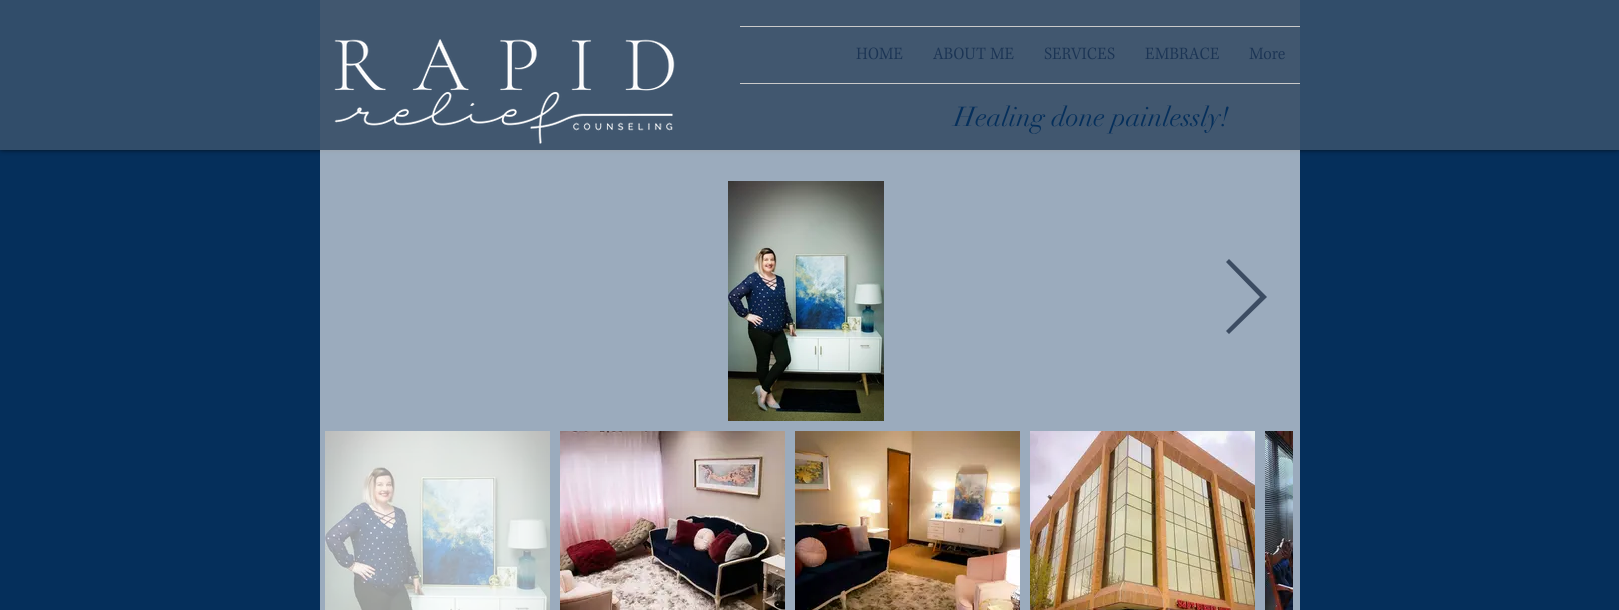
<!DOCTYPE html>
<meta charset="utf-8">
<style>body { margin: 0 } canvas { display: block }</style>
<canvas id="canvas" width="1619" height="610"></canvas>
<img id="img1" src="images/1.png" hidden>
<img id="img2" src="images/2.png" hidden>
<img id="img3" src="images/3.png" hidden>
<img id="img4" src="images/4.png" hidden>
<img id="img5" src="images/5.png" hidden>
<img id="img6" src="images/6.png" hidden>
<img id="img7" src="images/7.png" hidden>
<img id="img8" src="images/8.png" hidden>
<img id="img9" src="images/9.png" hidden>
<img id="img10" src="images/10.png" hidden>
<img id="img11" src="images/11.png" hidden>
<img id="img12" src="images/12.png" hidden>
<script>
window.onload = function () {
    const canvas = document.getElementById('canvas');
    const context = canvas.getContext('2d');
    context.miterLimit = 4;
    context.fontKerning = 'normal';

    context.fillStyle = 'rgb(5, 47, 91)';
    context.fillRect(0, 0, 1619, 610);
    context.fillStyle = 'rgba(0, 0, 0, 0.7)';
    context.filter = 'blur(2.5px)';
    context.beginPath();
    context.rect(0, 0, 1619, 150);
    context.fill();
    context.filter = 'none';
    context.fillStyle = 'rgb(49, 77, 106)';
    context.fillRect(0, 0, 1619, 150);
    context.fillStyle = 'rgb(65, 87, 111)';
    context.fillRect(320, 0, 980, 150);
    context.drawImage(document.getElementById('img1'), 334, 39, 341, 105);
    context.fillStyle = 'rgb(202, 202, 202)';
    context.fillRect(740, 26, 560, 1);
    context.fillRect(740, 83, 560, 1);
    context.drawImage(document.getElementById('img2'), 856, 47, 47, 13);
    context.drawImage(document.getElementById('img3'), 933, 47, 81, 13);
    context.drawImage(document.getElementById('img4'), 1044, 47, 71, 13);
    context.drawImage(document.getElementById('img5'), 1145, 47, 74, 13);
    context.drawImage(document.getElementById('img6'), 1249, 47, 36, 13);
    context.fillStyle = 'rgba(255, 255, 255, 0.6)';
    context.fillRect(320, 150, 980, 460);
    context.drawImage(document.getElementById('img7'), 728, 181, 156, 240);
    context.fillStyle = 'rgb(60, 76, 98)';
    context.beginPath();
    context.moveTo(1226, 262);
    context.lineTo(1229, 259);
    context.lineTo(1267, 297);
    context.lineTo(1229, 334);
    context.lineTo(1226, 331);
    context.lineTo(1260, 297);
    context.closePath();
    context.fill();
    context.drawImage(document.getElementById('img8'), 325, 431, 225, 179);
    context.drawImage(document.getElementById('img9'), 560, 431, 225, 179);
    context.drawImage(document.getElementById('img10'), 795, 431, 225, 179);
    context.drawImage(document.getElementById('img11'), 1030, 431, 225, 179);
    context.drawImage(document.getElementById('img12'), 1265, 431, 28, 179);
    context.font = '27px didot';
    context.fillStyle = 'rgb(5, 47, 91)';
    context.fillText('Healing done painlessly!', 954, 126);
};
</script>
